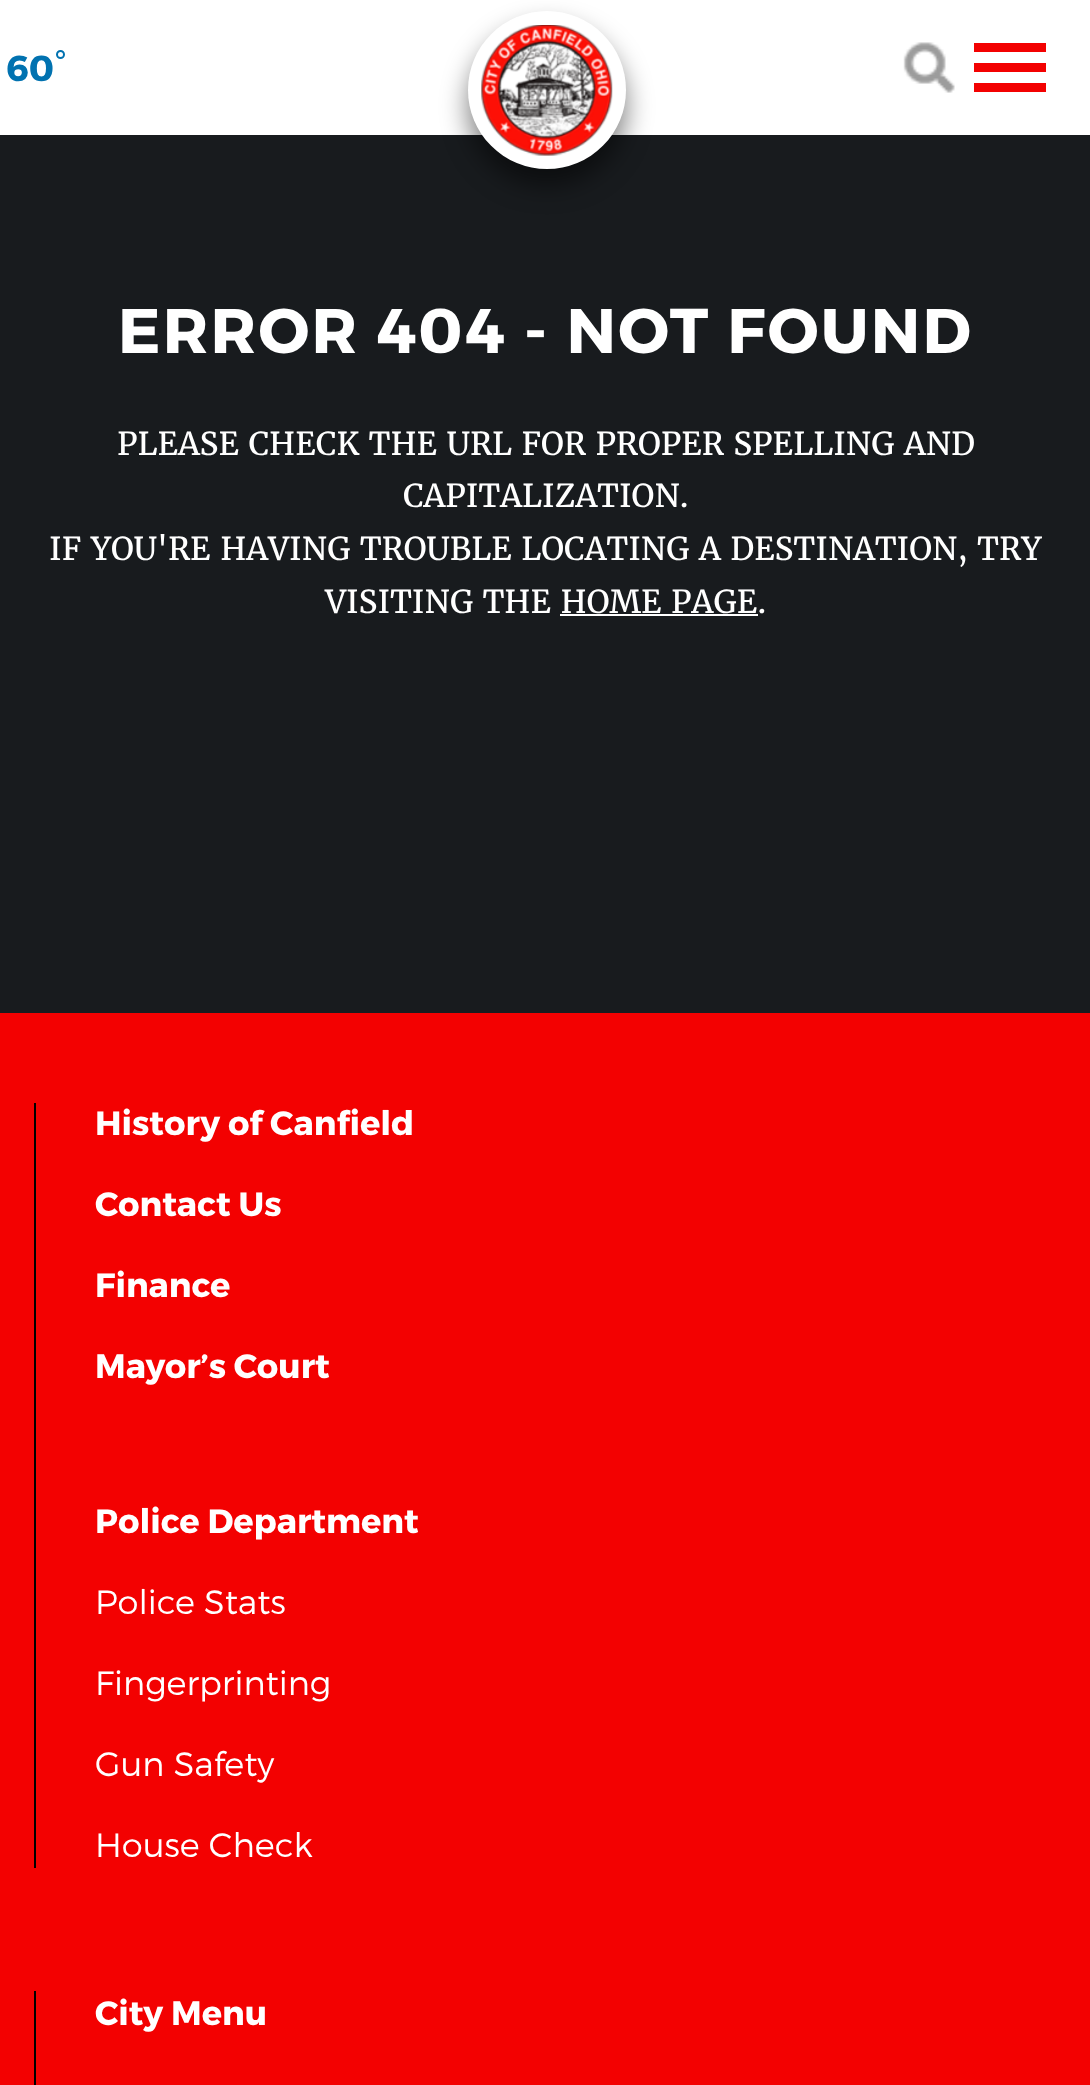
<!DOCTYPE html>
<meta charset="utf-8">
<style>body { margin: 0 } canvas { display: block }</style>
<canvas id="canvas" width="1090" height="2085"></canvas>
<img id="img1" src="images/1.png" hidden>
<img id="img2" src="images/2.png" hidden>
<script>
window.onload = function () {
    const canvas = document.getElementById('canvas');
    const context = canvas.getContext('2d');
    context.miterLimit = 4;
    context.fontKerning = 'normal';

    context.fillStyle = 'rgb(24, 27, 30)';
    context.fillRect(0, 0, 1090, 2085);
    context.fillStyle = 'rgb(255, 255, 255)';
    context.fillRect(0, 0, 1090, 135);
    context.beginPath();
    context.arc(60.5, 54.5, 3.5, 0, 2 * Math.PI);
    context.strokeStyle = 'rgb(1, 114, 176)';
    context.lineWidth = 2;
    context.stroke();
    context.fillStyle = 'rgba(0, 0, 0, 0.5)';
    context.filter = 'blur(13.5px)';
    context.beginPath();
    context.roundRect(468, 27, 158, 158, 79);
    context.fill();
    context.filter = 'none';
    context.fillStyle = 'rgb(255, 255, 255)';
    context.beginPath();
    context.arc(547, 90, 79, 0, 2 * Math.PI);
    context.fill();
    context.drawImage(document.getElementById('img1'), 481, 25, 132, 131);
    context.drawImage(document.getElementById('img2'), 903, 42, 52, 51);
    context.fillStyle = 'rgb(243, 1, 1)';
    context.fillRect(974, 63, 72, 9);
    context.fillRect(974, 43, 72, 9);
    context.fillRect(974, 83, 72, 9);
    context.fillStyle = 'rgb(255, 255, 255)';
    context.fillRect(560, 614, 198, 2);
    context.fillStyle = 'rgb(243, 1, 1)';
    context.fillRect(0, 1013, 1090, 1072);
    context.fillStyle = 'rgb(0, 0, 0)';
    context.fillRect(34, 1103, 2, 765);
    context.fillRect(34, 1991, 2, 94);
    context.font = 'bold 36px Montserrat';
    context.fillStyle = 'rgb(1, 114, 176)';
    context.fillText('60', 6, 81);
    context.letterSpacing = '2.25px';
    context.font = 'bold 63px Montserrat';
    context.fillStyle = 'rgb(255, 255, 255)';
    context.fillText('ERROR 404 - NOT FOUND', 118, 353);
    context.letterSpacing = '0px';
    context.font = '31.5px Merriweather';
    context.fillText('PLEASE CHECK THE URL FOR PROPER SPELLING AND', 117, 455);
    context.fillText('CAPITALIZATION.', 403, 507);
    context.fillText('IF YOU\'RE HAVING TROUBLE LOCATING A DESTINATION, TRY', 49, 560);
    context.fillText('VISITING THE HOME PAGE.', 325, 613);
    context.font = 'bold 33.75px Montserrat';
    context.fillText('History of Canfield', 95, 1135);
    context.fillText('Contact Us', 95, 1216);
    context.fillText('Finance', 95, 1297);
    context.fillText('Mayor’s Court', 95, 1378);
    context.fillText('Police Department', 95, 1533);
    context.font = '300 33.75px Montserrat';
    context.fillText('Police Stats', 95, 1614);
    context.fillText('Fingerprinting', 95, 1695);
    context.fillText('Gun Safety', 95, 1776);
    context.fillText('House Check', 95, 1857);
    context.font = 'bold 33.75px Montserrat';
    context.fillText('City Menu', 95, 2025);
};
</script>
